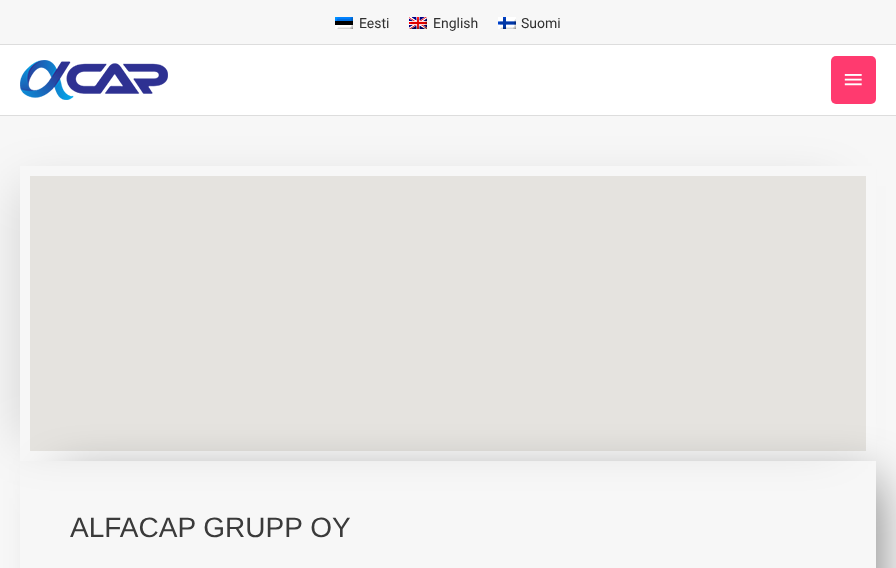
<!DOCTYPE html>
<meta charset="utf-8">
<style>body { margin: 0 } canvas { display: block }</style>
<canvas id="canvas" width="896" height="568"></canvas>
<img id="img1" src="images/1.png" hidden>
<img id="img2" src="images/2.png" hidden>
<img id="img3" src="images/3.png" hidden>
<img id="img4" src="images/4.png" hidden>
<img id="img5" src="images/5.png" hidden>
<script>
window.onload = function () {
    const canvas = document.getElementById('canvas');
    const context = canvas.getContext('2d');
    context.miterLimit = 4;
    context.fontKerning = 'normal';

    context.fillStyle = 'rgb(247, 247, 247)';
    context.fillRect(0, 0, 896, 568);
    context.fillStyle = 'rgb(221, 221, 221)';
    context.fillRect(0, 44, 896, 1);
    context.drawImage(document.getElementById('img1'), 335, 17, 18, 12);
    context.drawImage(document.getElementById('img2'), 409, 17, 18, 12);
    context.drawImage(document.getElementById('img3'), 498, 17, 18, 12);
    context.save();
    context.beginPath();
    context.moveTo(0, 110);
    context.lineTo(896, 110);
    context.lineTo(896, 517);
    context.lineTo(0, 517);
    context.closePath();
    context.moveTo(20, 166);
    context.lineTo(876, 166);
    context.lineTo(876, 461);
    context.lineTo(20, 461);
    context.closePath();
    context.clip('evenodd');
    context.fillStyle = 'rgba(0, 0, 0, 0.15)';
    context.filter = 'blur(25px)';
    context.beginPath();
    context.rect(20, 186, 816, 255);
    context.fill();
    context.filter = 'none';
    context.restore();
    context.fillStyle = 'rgb(255, 255, 255)';
    context.fillRect(0, 45, 896, 70);
    context.fillStyle = 'rgb(221, 221, 221)';
    context.fillRect(0, 115, 896, 1);
    context.drawImage(document.getElementById('img4'), 20, 60, 148, 40);
    context.fillStyle = 'rgb(255, 58, 111)';
    context.beginPath();
    context.roundRect(831, 56, 45, 48, 5);
    context.fill();
    context.drawImage(document.getElementById('img5'), 844, 74, 18, 12);
    context.fillStyle = 'rgb(229, 227, 223)';
    context.fillRect(30, 176, 836, 275);
    context.save();
    context.beginPath();
    context.moveTo(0, 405);
    context.lineTo(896, 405);
    context.lineTo(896, 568);
    context.lineTo(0, 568);
    context.closePath();
    context.moveTo(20, 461);
    context.lineTo(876, 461);
    context.lineTo(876, 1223);
    context.lineTo(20, 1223);
    context.closePath();
    context.clip('evenodd');
    context.fillStyle = 'rgba(0, 0, 0, 0.5)';
    context.filter = 'blur(25px)';
    context.beginPath();
    context.rect(60, 481, 816, 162);
    context.fill();
    context.filter = 'none';
    context.restore();
    context.font = '14px Roboto';
    context.fillStyle = 'rgb(48, 48, 48)';
    context.fillText('Eesti', 359, 28);
    context.fillText('English', 433, 28);
    context.fillText('Suomi', 521, 28);
    context.font = '28px Liberation Sans';
    context.fillStyle = 'rgb(58, 58, 58)';
    context.fillText('ALFACAP GRUPP OY', 70, 537);
};
</script>
